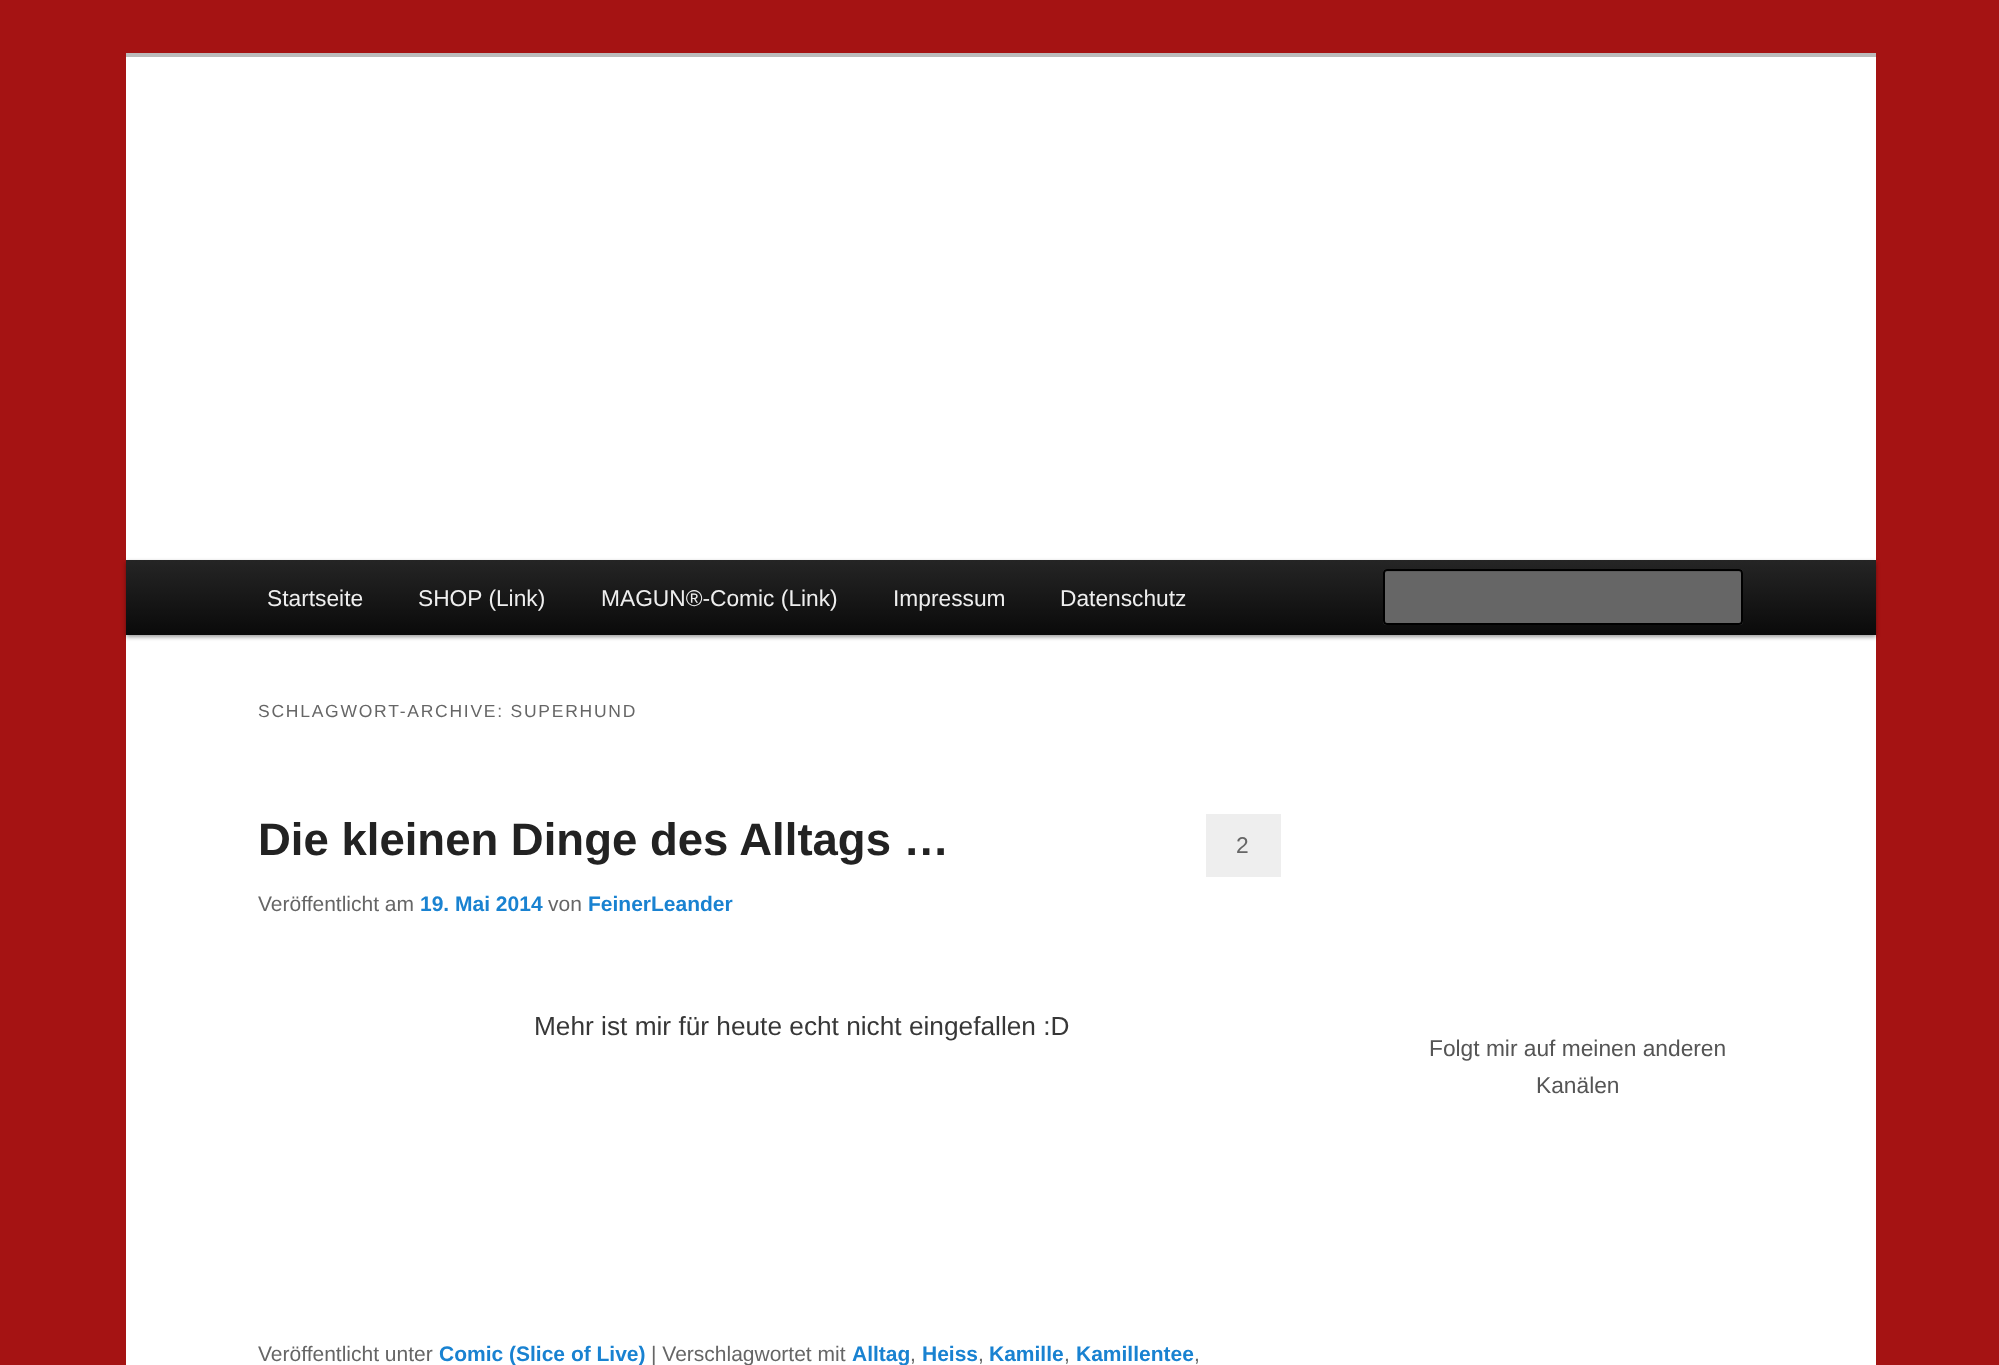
<!DOCTYPE html>
<meta charset="utf-8">
<style>body { margin: 0 } canvas { display: block }</style>
<canvas id="canvas" width="1999" height="1365"></canvas>
<script>
window.onload = function () {
    const canvas = document.getElementById('canvas');
    const context = canvas.getContext('2d');
    context.miterLimit = 4;
    context.fontKerning = 'normal';
    let gradient;

    context.fillStyle = 'rgb(165, 19, 19)';
    context.fillRect(0, 0, 1999, 1365);
    context.fillStyle = 'rgb(255, 255, 255)';
    context.fillRect(126, 57, 1750, 1308);
    context.fillStyle = 'rgb(187, 187, 187)';
    context.fillRect(126, 53, 1750, 4);
    context.fillStyle = 'rgba(0, 0, 0, 0.4)';
    context.filter = 'blur(2px)';
    context.beginPath();
    context.rect(126, 562, 1750, 75);
    context.fill();
    context.filter = 'none';
    gradient = context.createLinearGradient(1001, 560, 1001, 635);
    gradient.addColorStop(0, 'rgb(37, 37, 37)');
    gradient.addColorStop(1, 'rgb(10, 10, 10)');
    context.fillStyle = gradient;
    context.fillRect(126, 560, 1750, 75);
    context.fillStyle = 'rgb(102, 102, 102)';
    context.beginPath();
    context.roundRect(1383, 569, 360, 56, 4);
    context.fill();
    context.fillStyle = 'rgb(92, 92, 92)';
    context.beginPath();
    context.moveTo(1386, 572);
    context.lineTo(1740, 572);
    context.lineTo(1741, 574);
    context.bezierCurveTo(1741, 573, 1741, 571, 1739, 571);
    context.lineTo(1386, 571);
    context.bezierCurveTo(1384, 571, 1384, 573, 1384, 574);
    context.bezierCurveTo(1384, 573, 1385, 572, 1386, 572);
    context.closePath();
    context.fill();
    context.beginPath();
    context.roundRect(1384, 570, 358, 54, 3);
    context.strokeStyle = 'rgb(0, 0, 0)';
    context.lineWidth = 2;
    context.stroke();
    context.fillStyle = 'rgb(238, 238, 238)';
    context.fillRect(1206, 814, 75, 63);
    context.font = '22.75px Liberation Sans';
    context.fillText('Startseite', 267, 606);
    context.fillText('SHOP (Link)', 418, 606);
    context.fillText('MAGUN®-Comic (Link)', 601, 606);
    context.fillText('Impressum', 893, 606);
    context.fillText('Datenschutz', 1060, 606);
    context.letterSpacing = '1.75px';
    context.font = '17.5px Liberation Sans';
    context.fillStyle = 'rgb(102, 102, 102)';
    context.fillText('SCHLAGWORT-ARCHIVE: SUPERHUND', 258, 717);
    context.letterSpacing = '0px';
    context.font = 'bold 45.5px Liberation Sans';
    context.fillStyle = 'rgb(34, 34, 34)';
    context.fillText('Die kleinen Dinge des Alltags …', 258, 855);
    context.font = '22.75px Liberation Sans';
    context.fillStyle = 'rgb(102, 102, 102)';
    context.fillText('2', 1236, 853);
    context.font = '21px Liberation Sans';
    context.fillText('Veröffentlicht am', 258, 911);
    context.font = 'bold 21px Liberation Sans';
    context.fillStyle = 'rgb(25, 130, 209)';
    context.fillText('19. Mai 2014', 420, 911);
    context.font = '21px Liberation Sans';
    context.fillStyle = 'rgb(102, 102, 102)';
    context.fillText('von', 548, 911);
    context.font = 'bold 21px Liberation Sans';
    context.fillStyle = 'rgb(25, 130, 209)';
    context.fillText('FeinerLeander', 588, 911);
    context.font = '26.25px Liberation Sans';
    context.fillStyle = 'rgb(55, 55, 55)';
    context.fillText('Mehr ist mir für heute echt nicht eingefallen :D', 534, 1035);
    context.font = '21px Liberation Sans';
    context.fillStyle = 'rgb(102, 102, 102)';
    context.fillText('Veröffentlicht unter', 258, 1361);
    context.font = 'bold 21px Liberation Sans';
    context.fillStyle = 'rgb(25, 130, 209)';
    context.fillText('Comic (Slice of Live)', 439, 1361);
    context.font = '21px Liberation Sans';
    context.fillStyle = 'rgb(102, 102, 102)';
    context.fillText('| Verschlagwortet mit', 651, 1361);
    context.font = 'bold 21px Liberation Sans';
    context.fillStyle = 'rgb(25, 130, 209)';
    context.fillText('Alltag', 852, 1361);
    context.font = '21px Liberation Sans';
    context.fillStyle = 'rgb(102, 102, 102)';
    context.fillText(',', 910, 1361);
    context.font = 'bold 21px Liberation Sans';
    context.fillStyle = 'rgb(25, 130, 209)';
    context.fillText('Heiss', 922, 1361);
    context.font = '21px Liberation Sans';
    context.fillStyle = 'rgb(102, 102, 102)';
    context.fillText(',', 978, 1361);
    context.font = 'bold 21px Liberation Sans';
    context.fillStyle = 'rgb(25, 130, 209)';
    context.fillText('Kamille', 989, 1361);
    context.font = '21px Liberation Sans';
    context.fillStyle = 'rgb(102, 102, 102)';
    context.fillText(',', 1064, 1361);
    context.font = 'bold 21px Liberation Sans';
    context.fillStyle = 'rgb(25, 130, 209)';
    context.fillText('Kamillentee', 1076, 1361);
    context.font = '21px Liberation Sans';
    context.fillStyle = 'rgb(102, 102, 102)';
    context.fillText(',', 1194, 1361);
    context.font = '22.75px Liberation Sans';
    context.fillStyle = 'rgb(85, 85, 85)';
    context.fillText('Folgt mir auf meinen anderen', 1429, 1056);
    context.fillText('Kanälen', 1536, 1093);
};
</script>
